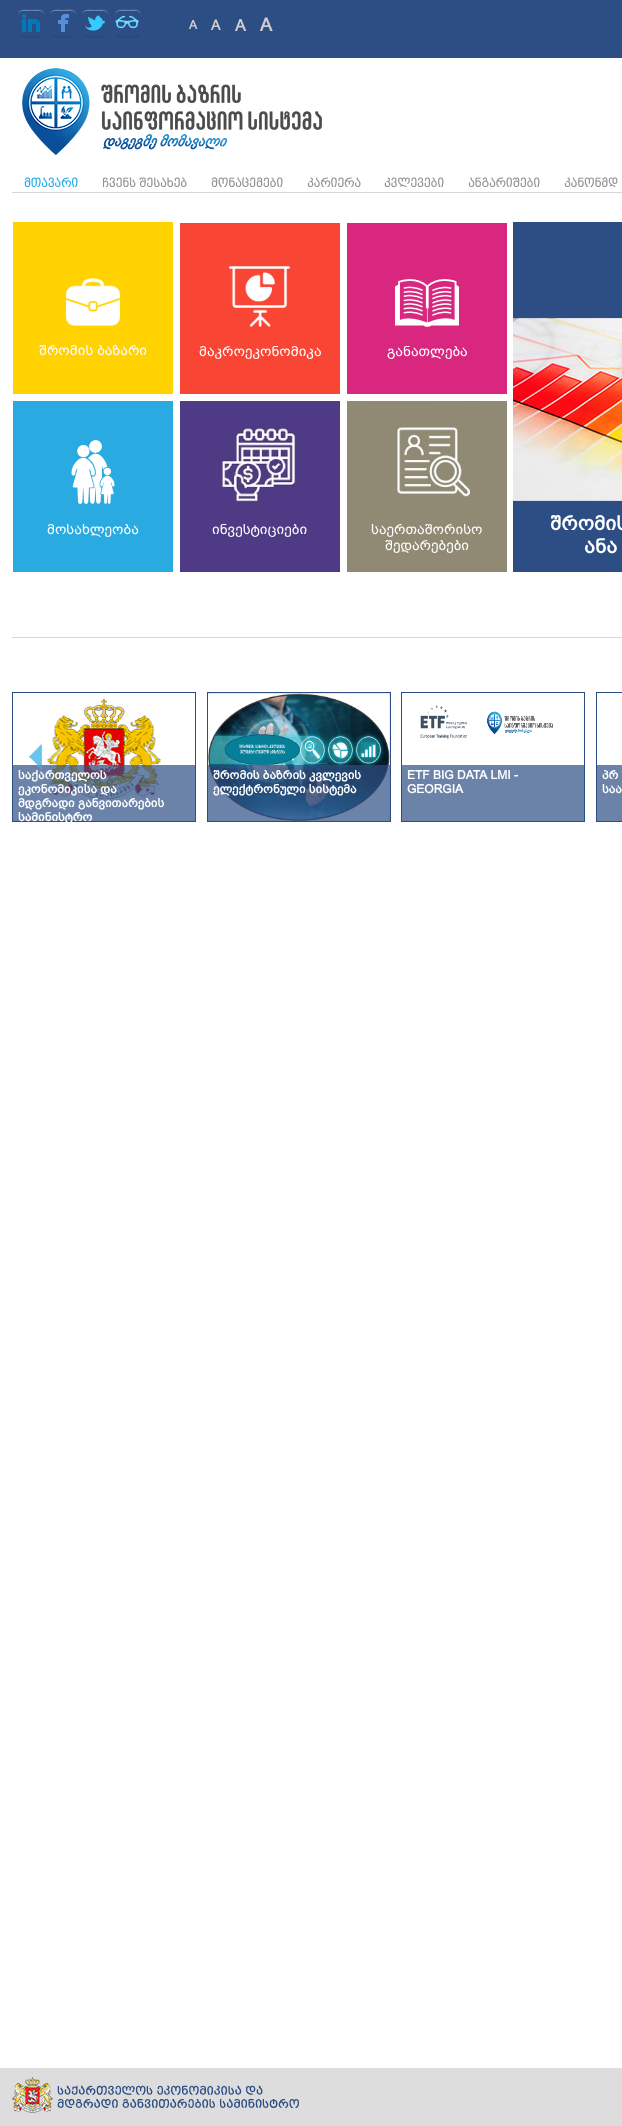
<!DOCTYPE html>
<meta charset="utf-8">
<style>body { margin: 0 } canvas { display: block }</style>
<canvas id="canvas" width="622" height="2126"></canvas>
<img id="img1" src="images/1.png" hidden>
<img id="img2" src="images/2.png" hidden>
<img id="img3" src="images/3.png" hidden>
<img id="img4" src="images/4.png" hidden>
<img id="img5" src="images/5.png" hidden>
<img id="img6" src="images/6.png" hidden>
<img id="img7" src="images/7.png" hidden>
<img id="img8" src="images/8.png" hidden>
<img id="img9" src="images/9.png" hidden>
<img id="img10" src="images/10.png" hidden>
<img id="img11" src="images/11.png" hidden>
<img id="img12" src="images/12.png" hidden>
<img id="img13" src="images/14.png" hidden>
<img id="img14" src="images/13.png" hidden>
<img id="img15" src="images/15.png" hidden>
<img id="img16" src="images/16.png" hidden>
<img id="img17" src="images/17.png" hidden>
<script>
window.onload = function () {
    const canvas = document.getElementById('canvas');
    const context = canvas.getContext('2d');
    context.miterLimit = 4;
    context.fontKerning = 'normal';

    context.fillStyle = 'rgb(255, 255, 255)';
    context.fillRect(0, 0, 622, 2126);
    context.fillStyle = 'rgb(45, 78, 133)';
    context.fillRect(0, 0, 622, 58);
    context.fillStyle = 'rgb(41, 70, 120)';
    context.beginPath();
    context.moveTo(18, 31);
    context.bezierCurveTo(18, 39, 25.5, 37, 31, 37);
    context.bezierCurveTo(36.5, 37, 44, 39, 44, 31);
    context.bezierCurveTo(44, 37.5, 35, 36, 31, 36);
    context.bezierCurveTo(27, 36, 18, 37.5, 18, 31);
    context.closePath();
    context.fill();
    context.drawImage(document.getElementById('img1'), 22, 14, 18, 18);
    context.fillStyle = 'rgb(108, 131, 170)';
    context.beginPath();
    context.moveTo(23, 11);
    context.lineTo(39, 11);
    context.bezierCurveTo(42, 11, 44, 13, 44, 16);
    context.bezierCurveTo(44, 8, 36.5, 10, 31, 10);
    context.bezierCurveTo(25.5, 10, 18, 8, 18, 16);
    context.bezierCurveTo(18, 13, 20, 11, 23, 11);
    context.closePath();
    context.fill();
    context.fillStyle = 'rgb(41, 70, 120)';
    context.beginPath();
    context.moveTo(50, 31);
    context.bezierCurveTo(50, 39, 57.5, 37, 63, 37);
    context.bezierCurveTo(68.5, 37, 76, 39, 76, 31);
    context.bezierCurveTo(76, 37.5, 67, 36, 63, 36);
    context.bezierCurveTo(59, 36, 50, 37.5, 50, 31);
    context.closePath();
    context.fill();
    context.drawImage(document.getElementById('img2'), 58, 14, 11, 18);
    context.fillStyle = 'rgb(108, 131, 170)';
    context.beginPath();
    context.moveTo(55, 11);
    context.lineTo(71, 11);
    context.bezierCurveTo(74, 11, 76, 13, 76, 16);
    context.bezierCurveTo(76, 8, 68.5, 10, 63, 10);
    context.bezierCurveTo(57.5, 10, 50, 8, 50, 16);
    context.bezierCurveTo(50, 13, 52, 11, 55, 11);
    context.closePath();
    context.fill();
    context.fillStyle = 'rgb(41, 70, 120)';
    context.beginPath();
    context.moveTo(82, 31);
    context.bezierCurveTo(82, 39, 89.5, 37, 95, 37);
    context.bezierCurveTo(100.5, 37, 108, 39, 108, 31);
    context.bezierCurveTo(108, 37.5, 99, 36, 95, 36);
    context.bezierCurveTo(91, 36, 82, 37.5, 82, 31);
    context.closePath();
    context.fill();
    context.drawImage(document.getElementById('img3'), 85, 15, 20, 16);
    context.fillStyle = 'rgb(108, 131, 170)';
    context.beginPath();
    context.moveTo(87, 11);
    context.lineTo(103, 11);
    context.bezierCurveTo(106, 11, 108, 13, 108, 16);
    context.bezierCurveTo(108, 8, 100.5, 10, 95, 10);
    context.bezierCurveTo(89.5, 10, 82, 8, 82, 16);
    context.bezierCurveTo(82, 13, 84, 11, 87, 11);
    context.closePath();
    context.fill();
    context.fillStyle = 'rgb(41, 70, 120)';
    context.beginPath();
    context.moveTo(115, 31);
    context.bezierCurveTo(115, 39, 122.5, 37, 128, 37);
    context.bezierCurveTo(133.5, 37, 141, 39, 141, 31);
    context.bezierCurveTo(141, 37.5, 132, 36, 128, 36);
    context.bezierCurveTo(124, 36, 115, 37.5, 115, 31);
    context.closePath();
    context.fill();
    context.drawImage(document.getElementById('img4'), 115, 15, 24, 14);
    context.fillStyle = 'rgb(108, 131, 170)';
    context.beginPath();
    context.moveTo(120, 11);
    context.lineTo(136, 11);
    context.bezierCurveTo(139, 11, 141, 13, 141, 16);
    context.bezierCurveTo(141, 8, 133.5, 10, 128, 10);
    context.bezierCurveTo(122.5, 10, 115, 8, 115, 16);
    context.bezierCurveTo(115, 13, 117, 11, 120, 11);
    context.closePath();
    context.fill();
    context.drawImage(document.getElementById('img5'), 22, 68, 300, 87);
    context.fillStyle = 'rgb(215, 215, 215)';
    context.fillRect(12, 192, 610, 1);
    context.drawImage(document.getElementById('img6'), 13, 222, 160, 172);
    context.drawImage(document.getElementById('img7'), 180, 223, 160, 171);
    context.drawImage(document.getElementById('img8'), 347, 223, 160, 171);
    context.drawImage(document.getElementById('img9'), 13, 401, 160, 171);
    context.drawImage(document.getElementById('img10'), 180, 401, 160, 171);
    context.drawImage(document.getElementById('img11'), 347, 401, 160, 171);
    context.drawImage(document.getElementById('img12'), 513, 222, 109, 350);
    context.fillRect(12, 637, 610, 1);
    context.strokeStyle = 'rgb(45, 78, 133)';
    context.strokeRect(12.5, 692.5, 183, 129);
    context.drawImage(document.getElementById('img13'), 47, 699, 114, 100);
    context.fillStyle = 'rgba(45, 78, 133, 0.7)';
    context.fillRect(13, 765, 182, 56);
    context.drawImage(document.getElementById('img14'), 29, 744, 13, 25);
    context.strokeRect(207.5, 692.5, 183, 129);
    context.drawImage(document.getElementById('img15'), 208, 693, 182, 128);
    context.fillRect(208, 765, 182, 56);
    context.strokeRect(401.5, 692.5, 183, 129);
    context.drawImage(document.getElementById('img16'), 420, 705, 133, 34);
    context.fillRect(402, 765, 182, 56);
    context.strokeRect(596.5, 692.5, 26, 129);
    context.fillRect(597, 765, 25, 56);
    context.fillStyle = 'rgb(221, 221, 221)';
    context.fillRect(0, 2068, 622, 58);
    context.drawImage(document.getElementById('img17'), 12, 2077, 287, 36);
    context.font = 'bold 12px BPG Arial';
    context.fillStyle = 'rgb(206, 206, 206)';
    context.fillText('A', 189, 29);
    context.font = 'bold 14px BPG Arial';
    context.fillText('A', 211, 30);
    context.font = 'bold 16px BPG Arial';
    context.fillText('A', 235, 31);
    context.font = 'bold 18px BPG Arial';
    context.fillText('A', 260, 31);
    context.font = 'bold 13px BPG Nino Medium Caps';
    context.fillStyle = 'rgb(41, 171, 226)';
    context.fillText('მთავარი', 24, 187);
    context.fillStyle = 'rgb(147, 147, 147)';
    context.fillText('ჩვენს შესახებ', 102, 187);
    context.fillText('მონაცემები', 211, 187);
    context.fillText('კარიერა', 307, 187);
    context.fillText('კვლევები', 384, 187);
    context.fillText('ანგარიშები', 468, 187);
    context.fillText('კანონმდ', 564, 187);
    context.font = '14px BPG Arial';
    context.fillStyle = 'rgb(255, 255, 255)';
    context.fillText('შრომის ბაზარი', 39, 355);
    context.fillText('მაკროეკონომიკა', 199, 356);
    context.fillText('განათლება', 387, 356);
    context.fillText('მოსახლეობა', 47, 534);
    context.fillText('ინვესტიციები', 212, 534);
    context.fillText('საერთაშორისო', 371, 534);
    context.fillText('შედარებები', 385, 550);
    context.font = 'bold 20px BPG Arial';
    context.fillText('შრომის', 550, 530);
    context.fillText('ანა', 584, 553);
    context.font = 'bold 12px BPG Arial';
    context.fillText('საქართველოს', 18, 779);
    context.fillText('ეკონომიკისა და', 18, 793);
    context.fillText('მდგრადი განვითარების', 18, 807);
    context.save();
    context.beginPath();
    context.rect(12, 692, 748, 130);
    context.clip();
    context.fillText('სამინისტრო', 18, 821);
    context.restore();
    context.fillText('შრომის ბაზრის კვლევის', 213, 779);
    context.fillText('ელექტრონული სისტემა', 213, 793);
    context.fillText('ETF BIG DATA LMI -', 407, 779);
    context.fillText('GEORGIA', 407, 793);
    context.fillText('პრ', 602, 779);
    context.fillText('საა', 602, 793);
};
</script>
